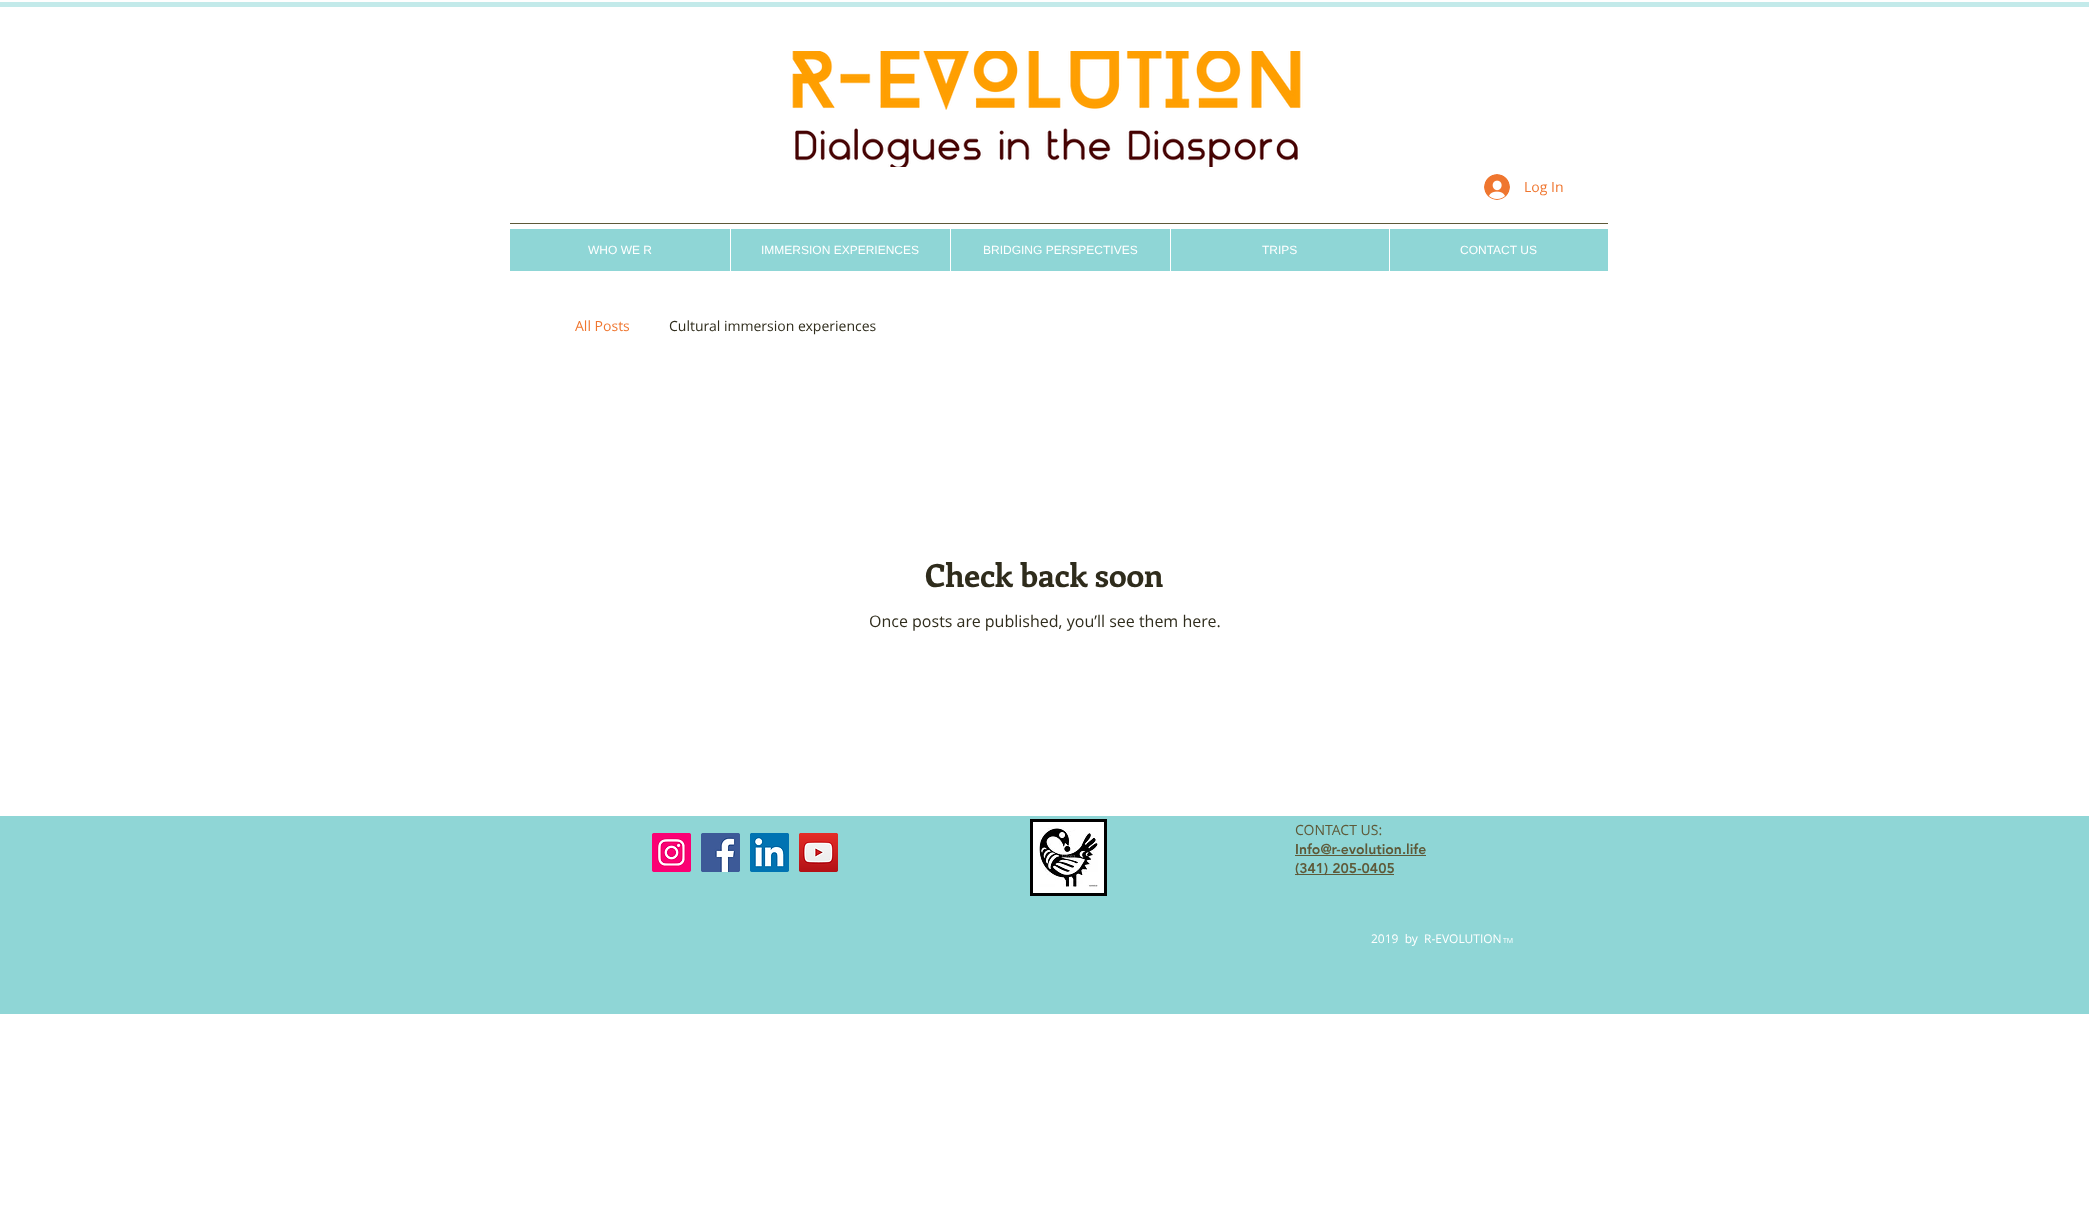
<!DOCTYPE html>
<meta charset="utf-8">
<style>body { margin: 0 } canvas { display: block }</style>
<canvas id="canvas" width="2089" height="1219"></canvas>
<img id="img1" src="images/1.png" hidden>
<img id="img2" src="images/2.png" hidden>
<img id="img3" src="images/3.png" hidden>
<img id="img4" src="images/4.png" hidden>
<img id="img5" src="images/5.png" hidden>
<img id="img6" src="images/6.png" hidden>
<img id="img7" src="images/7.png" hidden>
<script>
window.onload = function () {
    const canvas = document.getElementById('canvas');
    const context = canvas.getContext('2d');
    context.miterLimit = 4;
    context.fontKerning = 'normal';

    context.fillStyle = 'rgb(255, 255, 255)';
    context.fillRect(0, 0, 2089, 1219);
    context.fillStyle = 'rgb(195, 234, 234)';
    context.fillRect(0, 2, 2089, 5);
    context.drawImage(document.getElementById('img1'), 790, 51, 513, 116);
    context.drawImage(document.getElementById('img2'), 1484, 174, 26, 26);
    context.fillStyle = 'rgb(94, 89, 56)';
    context.fillRect(510, 223, 1098, 1);
    context.fillStyle = 'rgb(143, 214, 214)';
    context.fillRect(510, 229, 1098, 42);
    context.fillStyle = 'rgb(255, 255, 255)';
    context.fillRect(730, 229, 1, 42);
    context.fillRect(950, 229, 1, 42);
    context.fillRect(1170, 229, 1, 42);
    context.fillRect(1389, 229, 1, 42);
    context.fillStyle = 'rgb(143, 214, 214)';
    context.fillRect(0, 816, 2089, 198);
    context.drawImage(document.getElementById('img3'), 652, 833, 39, 39);
    context.drawImage(document.getElementById('img4'), 701, 833, 39, 39);
    context.drawImage(document.getElementById('img5'), 750, 833, 39, 39);
    context.drawImage(document.getElementById('img6'), 799, 833, 39, 39);
    context.fillStyle = 'rgb(255, 255, 255)';
    context.beginPath();
    context.rect(1031.5, 820.5, 74, 74);
    context.fill();
    context.strokeStyle = 'rgb(0, 0, 0)';
    context.lineWidth = 3;
    context.stroke();
    context.drawImage(document.getElementById('img7'), 1039, 828, 59, 59);
    context.fillStyle = 'rgb(94, 89, 56)';
    context.fillRect(1295, 855, 131, 1);
    context.fillRect(1295, 874, 99, 1);
    context.font = '14px Open Sans';
    context.fillStyle = 'rgb(239, 118, 47)';
    context.fillText('Log In', 1524, 192);
    context.font = '12px Liberation Sans';
    context.fillStyle = 'rgb(255, 255, 255)';
    context.fillText('WHO WE R', 588, 254);
    context.fillText('IMMERSION EXPERIENCES', 761, 254);
    context.fillText('BRIDGING PERSPECTIVES', 983, 254);
    context.fillText('TRIPS', 1262, 254);
    context.fillText('CONTACT US', 1460, 254);
    context.font = '14px Open Sans';
    context.fillStyle = 'rgb(239, 118, 47)';
    context.fillText('All Posts', 575, 331);
    context.fillStyle = 'rgb(47, 44, 28)';
    context.fillText('Cultural immersion experiences', 669, 331);
    context.font = 'bold 32px Enriqueta';
    context.fillText('Check back soon', 925, 587);
    context.font = '16px Open Sans';
    context.fillText('Once posts are published, you’ll see them here.', 869, 627);
    context.font = '14px Open Sans';
    context.fillStyle = 'rgb(94, 89, 56)';
    context.fillText('CONTACT US:', 1295, 835);
    context.font = '900 14px "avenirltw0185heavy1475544"';
    context.fillText('Info@r-evolution.life', 1295, 854);
    context.fillText('(341) 205-0405', 1295, 873);
    context.font = '12px Open Sans';
    context.fillStyle = 'rgb(255, 255, 255)';
    context.fillText('2019  by  R-EVOLUTION', 1371, 943);
    context.font = '7px Open Sans';
    context.fillText('TM', 1503, 943);
};
</script>
